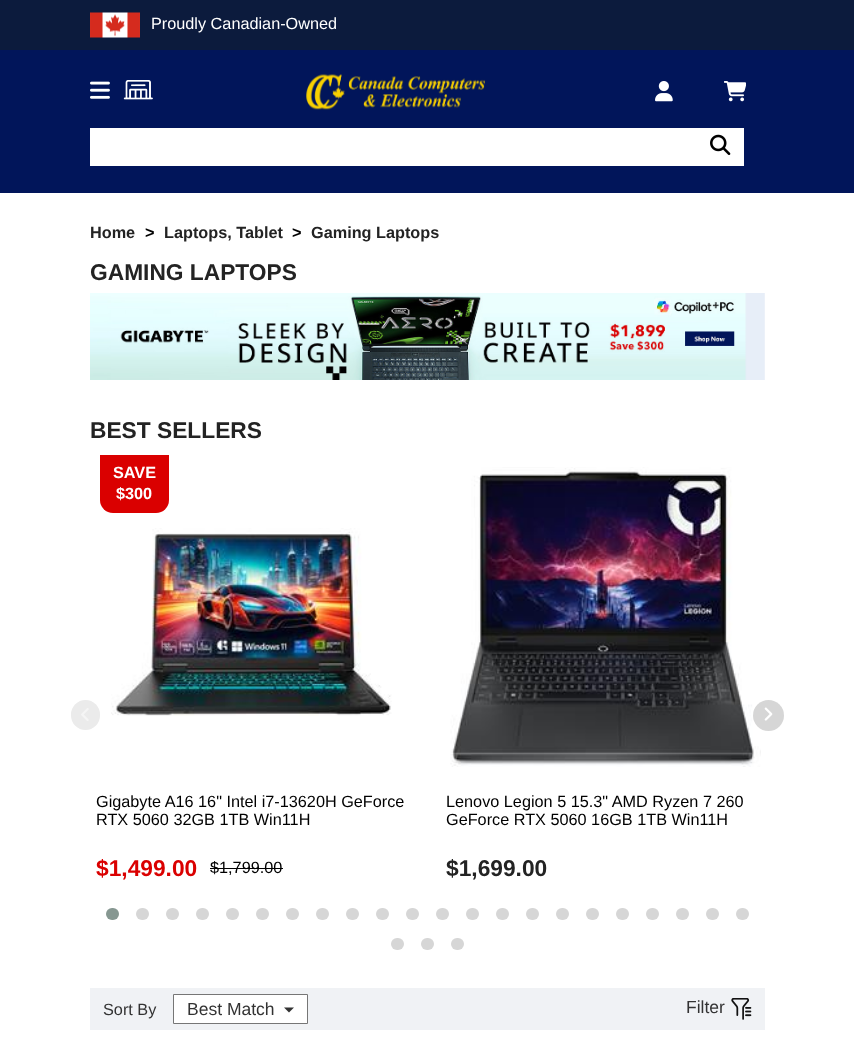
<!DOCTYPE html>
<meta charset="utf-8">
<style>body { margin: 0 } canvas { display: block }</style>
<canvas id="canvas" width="854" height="1054"></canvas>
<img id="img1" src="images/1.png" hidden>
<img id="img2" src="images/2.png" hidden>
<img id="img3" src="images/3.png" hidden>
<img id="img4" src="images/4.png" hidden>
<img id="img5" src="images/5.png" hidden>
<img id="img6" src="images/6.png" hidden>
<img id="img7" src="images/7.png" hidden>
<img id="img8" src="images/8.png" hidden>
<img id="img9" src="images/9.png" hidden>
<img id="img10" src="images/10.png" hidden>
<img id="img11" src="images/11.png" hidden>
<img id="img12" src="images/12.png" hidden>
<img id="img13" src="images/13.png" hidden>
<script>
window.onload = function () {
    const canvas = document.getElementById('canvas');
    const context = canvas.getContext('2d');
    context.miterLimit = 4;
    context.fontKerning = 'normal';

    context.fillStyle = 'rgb(255, 255, 255)';
    context.fillRect(0, 0, 854, 1054);
    context.fillStyle = 'rgb(1, 21, 90)';
    context.fillRect(0, 50, 854, 143);
    context.fillStyle = 'rgb(12, 27, 61)';
    context.fillRect(0, 0, 854, 50);
    context.drawImage(document.getElementById('img1'), 90, 12, 50, 26);
    context.drawImage(document.getElementById('img2'), 90, 81, 20, 18);
    context.drawImage(document.getElementById('img3'), 123, 80, 30, 20);
    context.drawImage(document.getElementById('img4'), 306, 74, 179, 36);
    context.drawImage(document.getElementById('img5'), 655, 81, 18, 21);
    context.drawImage(document.getElementById('img6'), 724, 81, 22, 21);
    context.fillStyle = 'rgb(255, 255, 255)';
    context.fillRect(90, 128, 654, 38);
    context.drawImage(document.getElementById('img7'), 710, 134, 21, 21);
    context.drawImage(document.getElementById('img8'), 90, 293, 675, 87);
    context.fillStyle = 'rgb(218, 0, 0)';
    context.beginPath();
    context.roundRect(100, 455, 69, 58, [0, 0, 13, 13]);
    context.fill();
    context.drawImage(document.getElementById('img9'), 111, 528, 281, 188);
    context.fillStyle = 'rgb(0, 0, 0)';
    context.fillRect(210, 868, 73, 1);
    context.drawImage(document.getElementById('img10'), 450, 467, 311, 300);
    context.fillStyle = 'rgb(235, 235, 235)';
    context.beginPath();
    context.roundRect(71, 700, 29, 30, 14.5);
    context.fill();
    context.drawImage(document.getElementById('img11'), 81, 708, 8, 13);
    context.fillStyle = 'rgb(214, 214, 214)';
    context.beginPath();
    context.arc(768.5, 715.5, 15.5, 0, 2 * Math.PI);
    context.fill();
    context.drawImage(document.getElementById('img12'), 764, 707, 9, 14);
    context.fillStyle = 'rgb(134, 151, 145)';
    context.beginPath();
    context.roundRect(106, 908, 13, 12, 6);
    context.fill();
    context.fillStyle = 'rgb(214, 214, 214)';
    context.beginPath();
    context.roundRect(136, 908, 13, 12, 6);
    context.fill();
    context.beginPath();
    context.roundRect(166, 908, 13, 12, 6);
    context.fill();
    context.beginPath();
    context.roundRect(196, 908, 13, 12, 6);
    context.fill();
    context.beginPath();
    context.roundRect(226, 908, 13, 12, 6);
    context.fill();
    context.beginPath();
    context.roundRect(256, 908, 13, 12, 6);
    context.fill();
    context.beginPath();
    context.roundRect(286, 908, 13, 12, 6);
    context.fill();
    context.beginPath();
    context.roundRect(316, 908, 13, 12, 6);
    context.fill();
    context.beginPath();
    context.roundRect(346, 908, 13, 12, 6);
    context.fill();
    context.beginPath();
    context.roundRect(376, 908, 13, 12, 6);
    context.fill();
    context.beginPath();
    context.roundRect(406, 908, 13, 12, 6);
    context.fill();
    context.beginPath();
    context.roundRect(436, 908, 13, 12, 6);
    context.fill();
    context.beginPath();
    context.roundRect(466, 908, 13, 12, 6);
    context.fill();
    context.beginPath();
    context.roundRect(496, 908, 13, 12, 6);
    context.fill();
    context.beginPath();
    context.roundRect(526, 908, 13, 12, 6);
    context.fill();
    context.beginPath();
    context.roundRect(556, 908, 13, 12, 6);
    context.fill();
    context.beginPath();
    context.roundRect(586, 908, 13, 12, 6);
    context.fill();
    context.beginPath();
    context.roundRect(616, 908, 13, 12, 6);
    context.fill();
    context.beginPath();
    context.roundRect(646, 908, 13, 12, 6);
    context.fill();
    context.beginPath();
    context.roundRect(676, 908, 13, 12, 6);
    context.fill();
    context.beginPath();
    context.roundRect(706, 908, 13, 12, 6);
    context.fill();
    context.beginPath();
    context.roundRect(736, 908, 13, 12, 6);
    context.fill();
    context.beginPath();
    context.roundRect(391, 938, 13, 12, 6);
    context.fill();
    context.beginPath();
    context.roundRect(421, 938, 13, 12, 6);
    context.fill();
    context.beginPath();
    context.roundRect(451, 938, 13, 12, 6);
    context.fill();
    context.fillStyle = 'rgb(240, 242, 245)';
    context.fillRect(90, 988, 675, 42);
    context.fillStyle = 'rgb(255, 255, 255)';
    context.beginPath();
    context.rect(173.5, 994.5, 134, 29);
    context.fill();
    context.strokeStyle = 'rgb(118, 118, 118)';
    context.stroke();
    context.fillStyle = 'rgb(51, 51, 51)';
    context.beginPath();
    context.moveTo(284, 1007.5);
    context.lineTo(294, 1007.5);
    context.lineTo(289, 1012.5);
    context.closePath();
    context.fill();
    context.drawImage(document.getElementById('img13'), 731, 998, 21, 22);
    context.font = '16.25px Liberation Sans';
    context.fillStyle = 'rgb(255, 255, 255)';
    context.fillText('Proudly Canadian-Owned', 151, 29);
    context.font = 'bold 16.25px Liberation Sans';
    context.fillStyle = 'rgb(35, 35, 35)';
    context.fillText('Home', 90, 238);
    context.fillStyle = 'rgb(0, 0, 0)';
    context.fillText('>', 145, 238);
    context.fillStyle = 'rgb(35, 35, 35)';
    context.fillText('Laptops, Tablet', 164, 238);
    context.fillStyle = 'rgb(0, 0, 0)';
    context.fillText('>', 292, 238);
    context.fillStyle = 'rgb(35, 35, 35)';
    context.fillText('Gaming Laptops', 311, 238);
    context.font = 'bold 22.75px Liberation Sans';
    context.fillText('GAMING LAPTOPS', 90, 280);
    context.fillText('BEST SELLERS', 90, 438);
    context.font = 'bold 16.25px Liberation Sans';
    context.fillStyle = 'rgb(255, 255, 255)';
    context.fillText('SAVE', 113, 478);
    context.fillText('$300', 116, 499);
    context.font = '16.25px Liberation Sans';
    context.fillStyle = 'rgb(0, 0, 0)';
    context.fillText('Gigabyte A16 16" Intel i7-13620H GeForce', 96, 807);
    context.fillText('RTX 5060 32GB 1TB Win11H', 96, 825);
    context.font = 'bold 22.75px Liberation Sans';
    context.fillStyle = 'rgb(218, 0, 0)';
    context.fillText('$1,499.00', 96, 876);
    context.font = '16.25px Liberation Sans';
    context.fillStyle = 'rgb(0, 0, 0)';
    context.fillText('$1,799.00', 210, 873);
    context.fillText('Lenovo Legion 5 15.3" AMD Ryzen 7 260', 446, 807);
    context.fillText('GeForce RTX 5060 16GB 1TB Win11H', 446, 825);
    context.font = 'bold 22.75px Liberation Sans';
    context.fillStyle = 'rgb(35, 35, 35)';
    context.fillText('$1,699.00', 446, 876);
    context.font = '16.25px Liberation Sans';
    context.fillStyle = 'rgb(51, 51, 51)';
    context.fillText('Sort By', 103, 1015);
    context.font = '17.5px Liberation Sans';
    context.fillText('Best Match', 187, 1015);
    context.fillText('Filter', 686, 1013);
};
</script>
